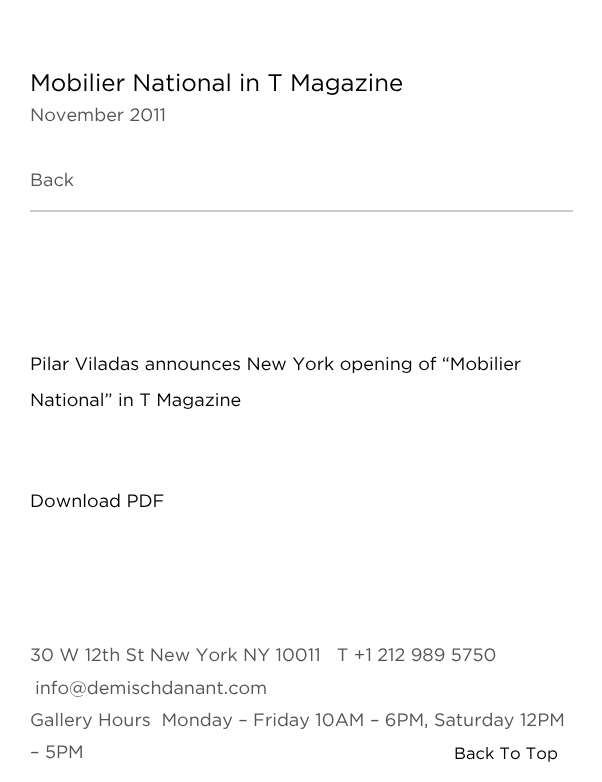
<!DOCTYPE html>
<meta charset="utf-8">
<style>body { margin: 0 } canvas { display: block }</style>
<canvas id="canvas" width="602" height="782"></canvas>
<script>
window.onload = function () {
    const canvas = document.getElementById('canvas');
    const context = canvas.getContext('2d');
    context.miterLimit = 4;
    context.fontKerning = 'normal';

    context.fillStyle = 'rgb(255, 255, 255)';
    context.fillRect(0, 0, 602, 782);
    context.fillStyle = 'rgb(204, 204, 204)';
    context.fillRect(30, 210, 543, 2);
    context.font = '24px Gotham';
    context.fillStyle = 'rgb(0, 0, 0)';
    context.fillText('Mobilier National in T Magazine', 30, 91);
    context.font = '18px Gotham';
    context.fillStyle = 'rgb(85, 85, 85)';
    context.fillText('November 2011', 30, 121);
    context.fillText('Back', 30, 186);
    context.fillStyle = 'rgb(0, 0, 0)';
    context.fillText('Pilar Viladas announces New York opening of “Mobilier', 30, 370);
    context.fillText('National” in T Magazine', 30, 406);
    context.fillText('Download PDF', 30, 507);
    context.fillStyle = 'rgb(85, 85, 85)';
    context.fillText('30 W 12th St New York NY 10011   T +1 212 989 5750', 30, 661);
    context.fillText('info@demischdanant.com', 35, 694);
    context.fillText('Gallery Hours  Monday – Friday 10AM – 6PM, Saturday 12PM', 30, 726);
    context.fillText('– 5PM', 30, 758);
    context.font = '16.5px Gotham';
    context.fillStyle = 'rgb(0, 0, 0)';
    context.fillText('Back To Top', 454, 759);
};
</script>
